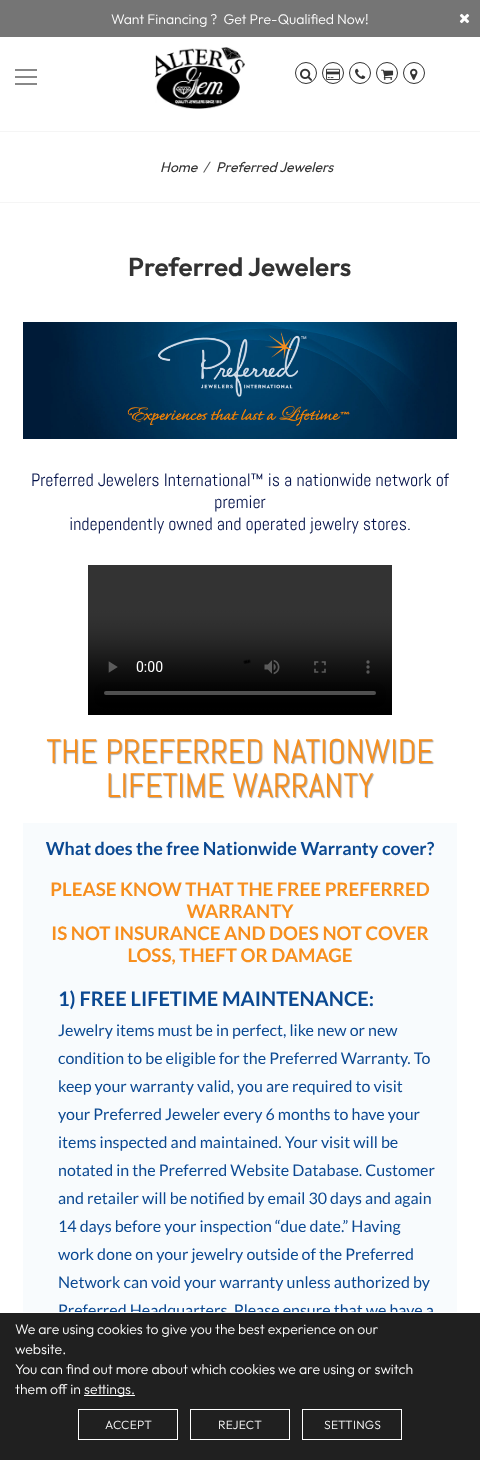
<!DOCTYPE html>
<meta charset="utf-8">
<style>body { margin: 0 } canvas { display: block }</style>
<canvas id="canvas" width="480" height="1460"></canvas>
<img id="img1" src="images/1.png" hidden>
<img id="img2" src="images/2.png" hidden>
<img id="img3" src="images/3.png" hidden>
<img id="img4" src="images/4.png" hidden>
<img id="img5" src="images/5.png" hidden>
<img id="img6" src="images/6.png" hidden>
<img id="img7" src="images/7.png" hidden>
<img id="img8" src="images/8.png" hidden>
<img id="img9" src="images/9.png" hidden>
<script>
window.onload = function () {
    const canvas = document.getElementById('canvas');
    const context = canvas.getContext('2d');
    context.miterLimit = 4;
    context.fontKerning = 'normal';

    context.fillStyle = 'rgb(255, 255, 255)';
    context.fillRect(0, 0, 480, 1460);
    context.fillStyle = 'rgb(117, 117, 117)';
    context.fillRect(0, 0, 480, 37);
    context.drawImage(document.getElementById('img1'), 459, 13, 11, 11);
    context.drawImage(document.getElementById('img2'), 15, 69, 22, 16);
    context.drawImage(document.getElementById('img3'), 155, 47, 90, 62);
    context.beginPath();
    context.arc(306, 73, 10.5, 0, 2 * Math.PI);
    context.strokeStyle = 'rgb(51, 51, 51)';
    context.stroke();
    context.drawImage(document.getElementById('img4'), 300, 68, 12, 13);
    context.beginPath();
    context.arc(333, 73, 10.5, 0, 2 * Math.PI);
    context.stroke();
    context.drawImage(document.getElementById('img5'), 326, 68, 14, 12);
    context.beginPath();
    context.arc(360, 73, 10.5, 0, 2 * Math.PI);
    context.stroke();
    context.drawImage(document.getElementById('img6'), 355, 68, 11, 11);
    context.beginPath();
    context.arc(387, 73, 10.5, 0, 2 * Math.PI);
    context.stroke();
    context.drawImage(document.getElementById('img7'), 381, 69, 13, 11);
    context.beginPath();
    context.arc(414, 73, 10.5, 0, 2 * Math.PI);
    context.stroke();
    context.drawImage(document.getElementById('img8'), 410, 68, 8, 12);
    context.fillStyle = 'rgb(245, 245, 245)';
    context.fillRect(0, 131, 480, 1);
    context.fillRect(0, 202, 480, 1);
    context.drawImage(document.getElementById('img9'), 23, 322, 434, 990);
    context.fillStyle = 'rgb(32, 32, 32)';
    context.fillRect(0, 1313, 480, 147);
    context.fillStyle = 'rgb(255, 255, 255)';
    context.fillRect(84, 1395, 51, 1);
    context.strokeStyle = 'rgb(255, 255, 255)';
    context.strokeRect(78.5, 1409.5, 99, 30);
    context.strokeRect(190.5, 1409.5, 99, 30);
    context.strokeRect(302.5, 1409.5, 99, 30);
    context.font = '300 14px Outfit';
    context.fillText('Want Financing ?  Get Pre-Qualified Now!', 111, 24);
    context.font = 'italic 14px Outfit';
    context.fillStyle = 'rgb(51, 51, 51)';
    context.fillText('Home', 160, 172);
    context.fillStyle = 'rgb(85, 85, 85)';
    context.fillText('/', 203, 172);
    context.fillStyle = 'rgb(51, 51, 51)';
    context.fillText('Preferred Jewelers', 216, 172);
    context.font = '600 26px Outfit';
    context.fillText('Preferred Jewelers', 128, 276);
    context.font = '300 14px Outfit';
    context.fillStyle = 'rgb(255, 255, 255)';
    context.fillText('We are using cookies to give you the best experience on our', 15, 1334);
    context.fillText('website.', 15, 1354);
    context.fillText('You can find out more about which cookies we are using or switch', 15, 1374);
    context.fillText('them off in', 15, 1394);
    context.fillText('settings.', 84, 1394);
    context.letterSpacing = '0.25px';
    context.font = '300 12px Outfit';
    context.fillText('ACCEPT', 105, 1429);
    context.fillText('REJECT', 218, 1429);
    context.fillText('SETTINGS', 324, 1429);
};
</script>
